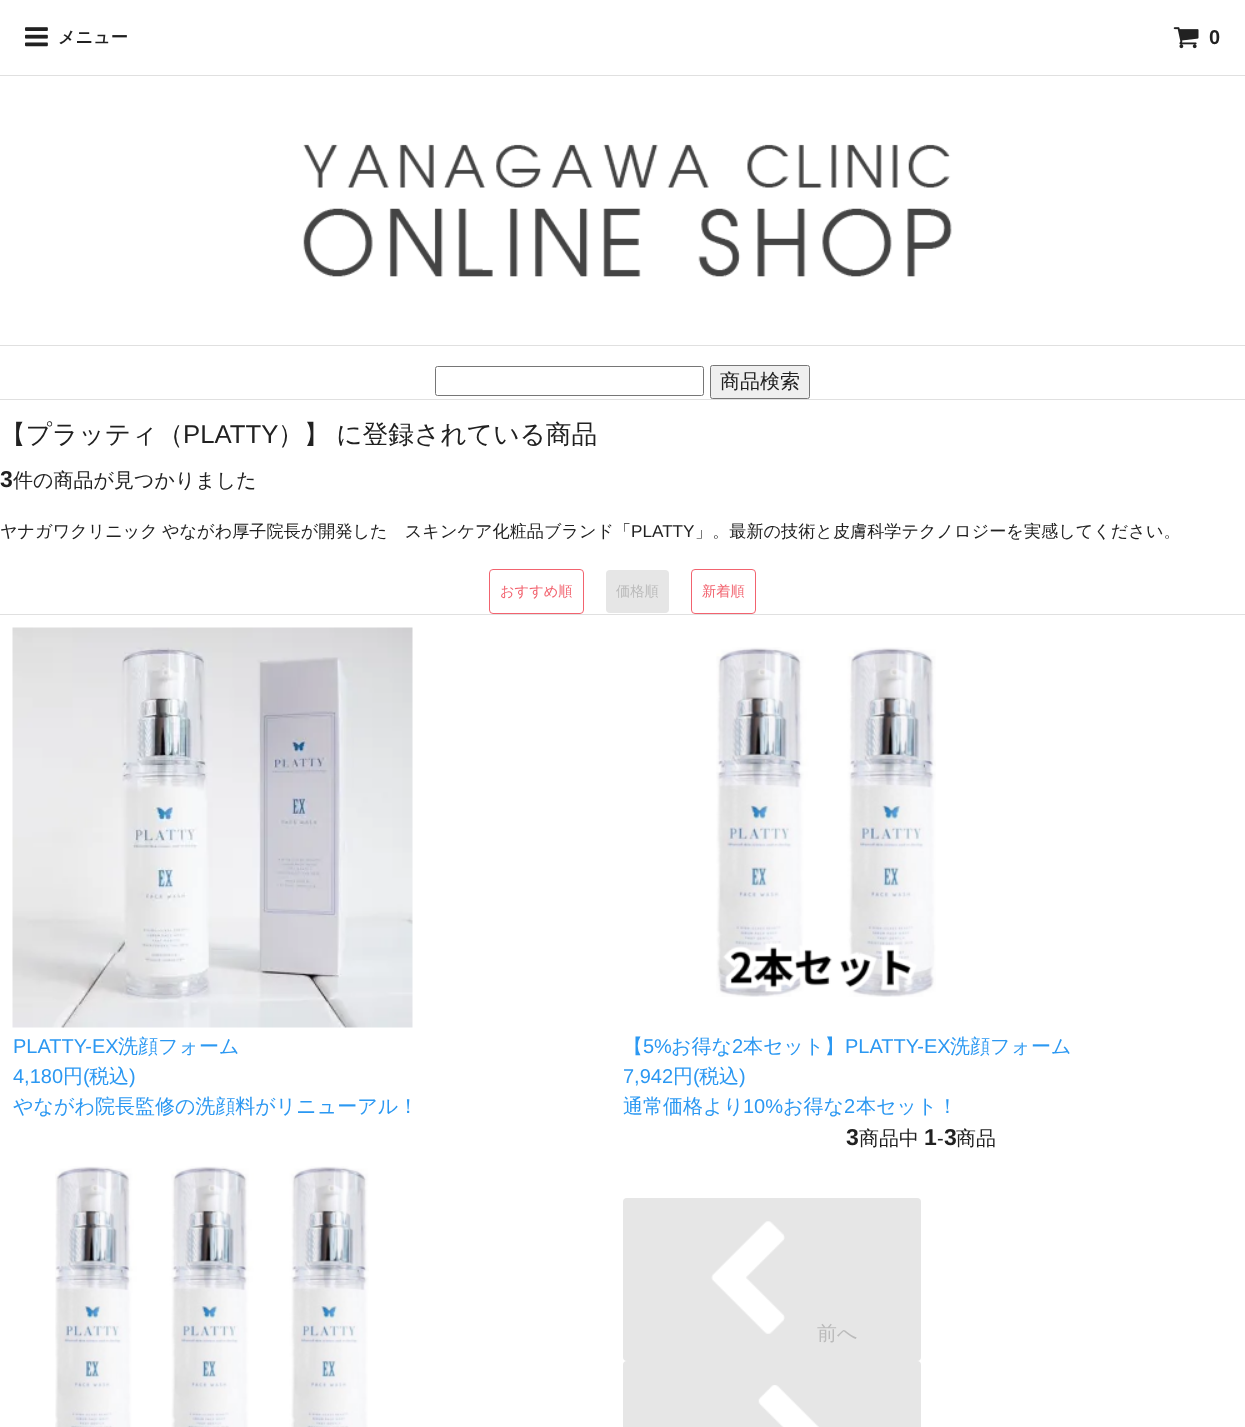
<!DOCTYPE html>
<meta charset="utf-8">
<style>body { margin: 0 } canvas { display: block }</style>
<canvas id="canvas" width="1245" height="1427"></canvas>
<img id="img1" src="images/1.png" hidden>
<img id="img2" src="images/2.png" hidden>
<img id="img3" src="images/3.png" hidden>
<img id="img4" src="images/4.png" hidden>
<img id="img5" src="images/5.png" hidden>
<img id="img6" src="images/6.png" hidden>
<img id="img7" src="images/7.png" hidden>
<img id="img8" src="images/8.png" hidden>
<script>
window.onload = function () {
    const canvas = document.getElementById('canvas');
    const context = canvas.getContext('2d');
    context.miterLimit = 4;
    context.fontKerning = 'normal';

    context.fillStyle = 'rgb(255, 255, 255)';
    context.fillRect(0, 0, 1245, 1427);
    context.fillStyle = 'rgb(224, 224, 224)';
    context.fillRect(0, 75, 1245, 1);
    context.drawImage(document.getElementById('img1'), 25, 27, 23, 20);
    context.drawImage(document.getElementById('img2'), 1173, 27, 26, 22);
    context.fillRect(0, 345, 1245, 1);
    context.drawImage(document.getElementById('img3'), 303, 144, 649, 133);
    context.fillRect(0, 399, 1245, 1);
    context.beginPath();
    context.roundRect(435.5, 366.5, 268, 29, 2);
    context.strokeStyle = 'rgb(118, 118, 118)';
    context.stroke();
    context.fillStyle = 'rgb(239, 239, 239)';
    context.beginPath();
    context.roundRect(710.5, 365.5, 99, 33, 2);
    context.fill();
    context.stroke();
    context.fillStyle = 'rgb(224, 224, 224)';
    context.fillRect(0, 614, 1245, 1);
    context.beginPath();
    context.roundRect(489.5, 569.5, 94, 44, 3.5);
    context.strokeStyle = 'rgb(242, 99, 111)';
    context.stroke();
    context.fillStyle = 'rgb(230, 230, 230)';
    context.beginPath();
    context.roundRect(606, 570, 63, 43, 4);
    context.fill();
    context.beginPath();
    context.roundRect(691.5, 569.5, 64, 44, 3.5);
    context.stroke();
    context.drawImage(document.getElementById('img4'), 12, 627, 401, 401);
    context.drawImage(document.getElementById('img5'), 716, 647, 220, 350);
    context.drawImage(document.getElementById('img6'), 55, 1166, 314, 261);
    context.beginPath();
    context.roundRect(623, 1198, 298, 163, 4);
    context.fill();
    context.drawImage(document.getElementById('img7'), 711, 1221, 74, 113);
    context.beginPath();
    context.roundRect(623, 1361, 298, 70, 4);
    context.fill();
    context.drawImage(document.getElementById('img8'), 758, 1385, 61, 42);
    context.font = 'bold 17.15px WenQuanYi Zen Hei';
    context.fillStyle = 'rgb(33, 33, 33)';
    context.fillText('メニュー', 58, 43);
    context.font = 'bold 20px Liberation Sans';
    context.fillText('0', 1209, 44);
    context.font = '500 20px WenQuanYi Zen Hei';
    context.fillText('商品検索', 720, 388);
    context.font = '500 25.75px WenQuanYi Zen Hei';
    context.fillText('【プラッティ（', 0, 443);
    context.font = '25.75px Liberation Sans';
    context.fillText('PLATTY', 183, 443);
    context.wordSpacing = '-1px';
    context.font = '500 25.75px WenQuanYi Zen Hei';
    context.fillText('）】 に登録されている商品', 278, 443);
    context.wordSpacing = '0px';
    context.font = 'bold 23px Liberation Sans';
    context.fillText('3', 0, 487);
    context.font = '500 20px WenQuanYi Zen Hei';
    context.fillText('件の商品が見つかりました', 13, 487);
    context.wordSpacing = '-1px';
    context.font = '500 17.15px WenQuanYi Zen Hei';
    context.fillText('ヤナガワクリニック やながわ厚子院長が開発した　スキンケア化粧品ブランド「', 0, 537);
    context.wordSpacing = '0px';
    context.font = '17.15px Liberation Sans';
    context.fillText('PLATTY', 631, 537);
    context.font = '500 17.15px WenQuanYi Zen Hei';
    context.fillText('」。最新の技術と皮膚科学テクノロジーを実感してください。', 695, 537);
    context.font = '500 14.25px WenQuanYi Zen Hei';
    context.fillStyle = 'rgb(242, 99, 111)';
    context.fillText('おすすめ順', 500, 596);
    context.fillStyle = 'rgb(187, 187, 187)';
    context.fillText('価格順', 616, 596);
    context.fillStyle = 'rgb(242, 99, 111)';
    context.fillText('新着順', 702, 596);
    context.font = '20px Liberation Sans';
    context.fillStyle = 'rgb(43, 152, 242)';
    context.fillText('PLATTY-EX', 13, 1053);
    context.font = '500 20px WenQuanYi Zen Hei';
    context.fillText('洗顔フォーム', 118, 1053);
    context.font = '20px Liberation Sans';
    context.fillText('4,180', 13, 1083);
    context.font = '500 20px WenQuanYi Zen Hei';
    context.fillText('円', 63, 1083);
    context.font = '20px Liberation Sans';
    context.fillText('(', 83, 1083);
    context.font = '500 20px WenQuanYi Zen Hei';
    context.fillText('税込', 89, 1083);
    context.font = '20px Liberation Sans';
    context.fillText(')', 129, 1083);
    context.font = '500 20px WenQuanYi Zen Hei';
    context.fillText('やながわ院長監修の洗顔料がリニューアル！', 13, 1113);
    context.fillText('【', 623, 1053);
    context.font = '20px Liberation Sans';
    context.fillText('5%', 643, 1053);
    context.font = '500 20px WenQuanYi Zen Hei';
    context.fillText('お得な', 671, 1053);
    context.font = '20px Liberation Sans';
    context.fillText('2', 732, 1053);
    context.font = '500 20px WenQuanYi Zen Hei';
    context.fillText('本セット】', 743, 1053);
    context.font = '20px Liberation Sans';
    context.fillText('PLATTY-EX', 845, 1053);
    context.font = '500 20px WenQuanYi Zen Hei';
    context.fillText('洗顔フォーム', 950, 1053);
    context.font = '20px Liberation Sans';
    context.fillText('7,942', 623, 1083);
    context.font = '500 20px WenQuanYi Zen Hei';
    context.fillText('円', 673, 1083);
    context.font = '20px Liberation Sans';
    context.fillText('(', 693, 1083);
    context.font = '500 20px WenQuanYi Zen Hei';
    context.fillText('税込', 699, 1083);
    context.font = '20px Liberation Sans';
    context.fillText(')', 739, 1083);
    context.font = '500 20px WenQuanYi Zen Hei';
    context.fillText('通常価格より', 623, 1113);
    context.font = '20px Liberation Sans';
    context.fillText('10%', 743, 1113);
    context.font = '500 20px WenQuanYi Zen Hei';
    context.fillText('お得な', 783, 1113);
    context.font = '20px Liberation Sans';
    context.fillText('2', 844, 1113);
    context.font = '500 20px WenQuanYi Zen Hei';
    context.fillText('本セット！', 856, 1113);
    context.font = 'bold 23px Liberation Sans';
    context.fillStyle = 'rgb(33, 33, 33)';
    context.fillText('3', 846, 1145);
    context.font = '500 20px WenQuanYi Zen Hei';
    context.fillText('商品中', 859, 1145);
    context.font = 'bold 23px Liberation Sans';
    context.fillText('1', 924, 1145);
    context.font = '20px Liberation Sans';
    context.fillText('-', 937, 1145);
    context.font = 'bold 23px Liberation Sans';
    context.fillText('3', 944, 1145);
    context.font = '500 20px WenQuanYi Zen Hei';
    context.fillText('商品', 956, 1145);
    context.fillStyle = 'rgb(187, 187, 187)';
    context.fillText('前へ', 817, 1340);
};
</script>
